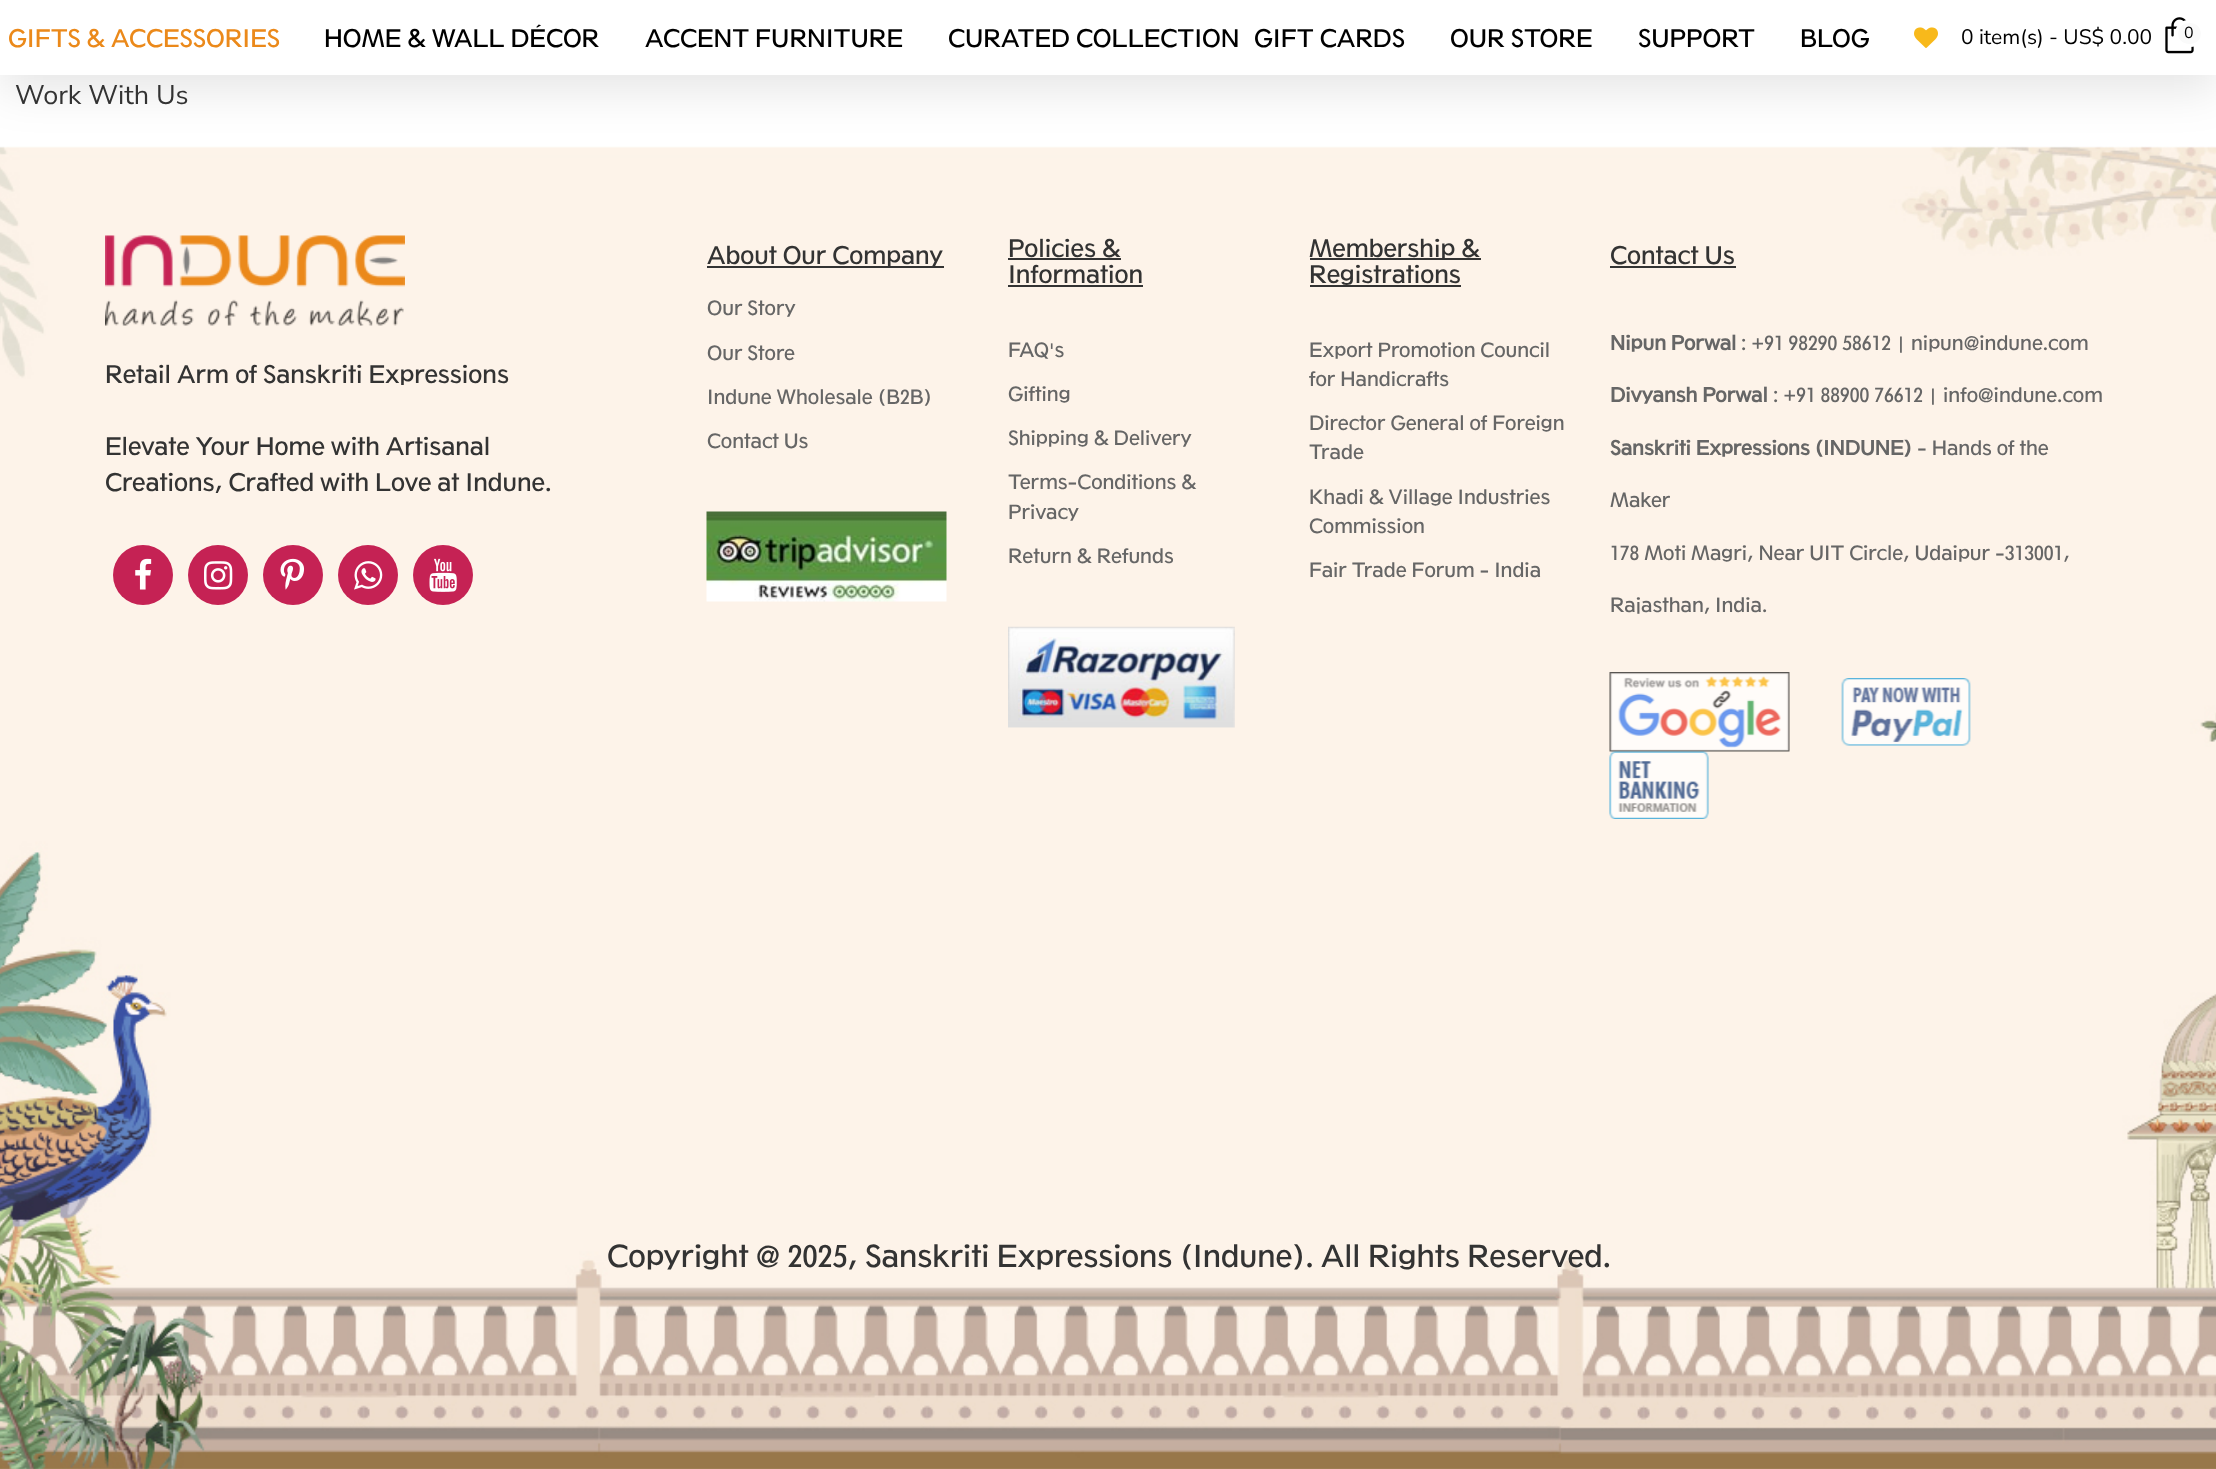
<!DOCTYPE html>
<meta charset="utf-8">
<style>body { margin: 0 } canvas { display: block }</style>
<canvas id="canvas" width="2216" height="1469"></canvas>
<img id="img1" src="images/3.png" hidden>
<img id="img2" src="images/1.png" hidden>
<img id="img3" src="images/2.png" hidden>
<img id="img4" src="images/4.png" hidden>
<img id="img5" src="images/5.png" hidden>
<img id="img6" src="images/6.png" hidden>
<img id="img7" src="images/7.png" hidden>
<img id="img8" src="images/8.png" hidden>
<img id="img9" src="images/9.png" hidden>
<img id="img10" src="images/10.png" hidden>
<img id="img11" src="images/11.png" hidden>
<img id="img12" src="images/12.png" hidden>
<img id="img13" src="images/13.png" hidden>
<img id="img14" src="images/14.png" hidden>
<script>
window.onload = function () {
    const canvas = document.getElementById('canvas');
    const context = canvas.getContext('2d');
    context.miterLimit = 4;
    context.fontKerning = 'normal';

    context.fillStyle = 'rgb(255, 255, 255)';
    context.fillRect(0, 0, 2216, 1469);
    context.drawImage(document.getElementById('img1'), 0, 146, 2216, 1323);
    context.fillStyle = 'rgba(0, 0, 0, 0.1)';
    context.filter = 'blur(22.5px)';
    context.beginPath();
    context.rect(0, 15, 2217, 75);
    context.fill();
    context.filter = 'none';
    context.fillStyle = 'rgb(255, 255, 255)';
    context.fillRect(0, 0, 2216, 75);
    context.drawImage(document.getElementById('img2'), 1914, 27, 24, 21);
    context.drawImage(document.getElementById('img3'), 2165, 17, 29, 37);
    context.fillStyle = 'rgb(250, 250, 250)';
    context.beginPath();
    context.roundRect(2176.5, 21.5, 26, 24, 12);
    context.fill();
    context.strokeStyle = 'rgb(255, 255, 255)';
    context.lineWidth = 3;
    context.stroke();
    context.drawImage(document.getElementById('img4'), 105, 235, 300, 91);
    context.fillStyle = 'rgb(197, 34, 84)';
    context.beginPath();
    context.arc(143, 575, 30, 0, 2 * Math.PI);
    context.fill();
    context.drawImage(document.getElementById('img5'), 135, 558, 17, 32);
    context.beginPath();
    context.arc(218, 575, 30, 0, 2 * Math.PI);
    context.fill();
    context.drawImage(document.getElementById('img6'), 204, 561, 29, 29);
    context.beginPath();
    context.arc(293, 575, 30, 0, 2 * Math.PI);
    context.fill();
    context.drawImage(document.getElementById('img7'), 280, 558, 25, 32);
    context.beginPath();
    context.arc(368, 575, 30, 0, 2 * Math.PI);
    context.fill();
    context.drawImage(document.getElementById('img8'), 354, 561, 29, 29);
    context.beginPath();
    context.arc(443, 575, 30, 0, 2 * Math.PI);
    context.fill();
    context.drawImage(document.getElementById('img9'), 429, 558, 28, 34);
    context.fillStyle = 'rgb(51, 51, 51)';
    context.fillRect(707, 266, 237, 2);
    context.drawImage(document.getElementById('img10'), 706, 511, 241, 91);
    context.fillRect(1008, 258, 113, 2);
    context.fillRect(1008, 285, 135, 2);
    context.drawImage(document.getElementById('img11'), 1008, 626, 227, 102);
    context.fillRect(1310, 258, 171, 2);
    context.fillRect(1310, 285, 151, 2);
    context.fillRect(1610, 266, 126, 2);
    context.drawImage(document.getElementById('img12'), 1609, 672, 181, 80);
    context.drawImage(document.getElementById('img13'), 1841, 678, 130, 68);
    context.drawImage(document.getElementById('img14'), 1609, 751, 100, 68);
    context.font = '24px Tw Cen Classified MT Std';
    context.fillStyle = 'rgb(235, 137, 26)';
    context.fillText('GIFTS & ACCESSORIES', 8, 47);
    context.fillStyle = 'rgb(0, 0, 0)';
    context.fillText('HOME & WALL DÉCOR', 324, 47);
    context.fillText('ACCENT FURNITURE', 645, 47);
    context.fillText('CURATED COLLECTION', 948, 47);
    context.fillText('GIFT CARDS', 1254, 47);
    context.fillText('OUR STORE', 1450, 47);
    context.fillText('SUPPORT', 1638, 47);
    context.fillText('BLOG', 1800, 47);
    context.font = '21px Nunito Sans';
    context.fillText('0 item(s) - US$ 0.00', 1961, 44);
    context.font = '16px Nunito Sans';
    context.fillText('0', 2184, 38);
    context.font = '27px Nunito Sans';
    context.fillStyle = 'rgb(51, 51, 51)';
    context.fillText('Work With Us', 15, 104);
    context.font = '24px Tw Cen Classified MT Std';
    context.fillText('Retail Arm of Sanskriti Expressions', 105, 383);
    context.fillText('Elevate Your Home with Artisanal', 105, 455);
    context.fillText('Creations, Crafted with Love at Indune.', 105, 491);
    context.fillText('About Our Company', 707, 264);
    context.font = '19.5px Tw Cen Classified MT Std';
    context.fillStyle = 'rgb(102, 102, 102)';
    context.fillText('Our Story', 707, 315);
    context.fillText('Our Store', 707, 360);
    context.fillText('Indune Wholesale (B2B)', 707, 404);
    context.fillText('Contact Us', 707, 448);
    context.font = '24px Tw Cen Classified MT Std';
    context.fillStyle = 'rgb(51, 51, 51)';
    context.fillText('Policies &', 1008, 257);
    context.fillText('Information', 1008, 283);
    context.font = '19.5px Tw Cen Classified MT Std';
    context.fillStyle = 'rgb(102, 102, 102)';
    context.fillText('FAQ\'s', 1008, 357);
    context.fillText('Gifting', 1008, 401);
    context.fillText('Shipping & Delivery', 1008, 445);
    context.fillText('Terms-Conditions &', 1008, 489);
    context.fillText('Privacy', 1008, 519);
    context.fillText('Return & Refunds', 1008, 563);
    context.font = '24px Tw Cen Classified MT Std';
    context.fillStyle = 'rgb(51, 51, 51)';
    context.fillText('Membership &', 1309, 257);
    context.fillText('Registrations', 1309, 283);
    context.font = '19.5px Tw Cen Classified MT Std';
    context.fillStyle = 'rgb(102, 102, 102)';
    context.fillText('Export Promotion Council', 1309, 357);
    context.fillText('for Handicrafts', 1309, 386);
    context.fillText('Director General of Foreign', 1309, 430);
    context.fillText('Trade', 1309, 459);
    context.fillText('Khadi & Village Industries', 1309, 504);
    context.fillText('Commission', 1309, 533);
    context.fillText('Fair Trade Forum - India', 1309, 577);
    context.font = '24px Tw Cen Classified MT Std';
    context.fillStyle = 'rgb(51, 51, 51)';
    context.fillText('Contact Us', 1610, 264);
    context.font = 'bold 19.5px Tw Cen Classified MT Std';
    context.fillStyle = 'rgb(102, 102, 102)';
    context.fillText('Nipun Porwal', 1610, 350);
    context.font = '19.5px Tw Cen Classified MT Std';
    context.fillText(': +91 98290 58612 | nipun@indune.com', 1741, 350);
    context.font = 'bold 19.5px Tw Cen Classified MT Std';
    context.fillText('Divyansh Porwal', 1610, 402);
    context.font = '19.5px Tw Cen Classified MT Std';
    context.fillText(': +91 88900 76612 | info@indune.com', 1773, 402);
    context.font = 'bold 19.5px Tw Cen Classified MT Std';
    context.fillText('Sanskriti Expressions (INDUNE)', 1610, 455);
    context.font = '19.5px Tw Cen Classified MT Std';
    context.fillText('- Hands of the', 1917, 455);
    context.fillText('Maker', 1610, 507);
    context.fillText('178 Moti Magri, Near UIT Circle, Udaipur -313001,', 1610, 560);
    context.fillText('Rajasthan, India.', 1610, 612);
    context.font = '30px Tw Cen Classified MT Std';
    context.fillStyle = 'rgb(51, 51, 51)';
    context.fillText('Copyright @ 2025, Sanskriti Expressions (Indune). All Rights Reserved.', 607, 1267);
};
</script>
